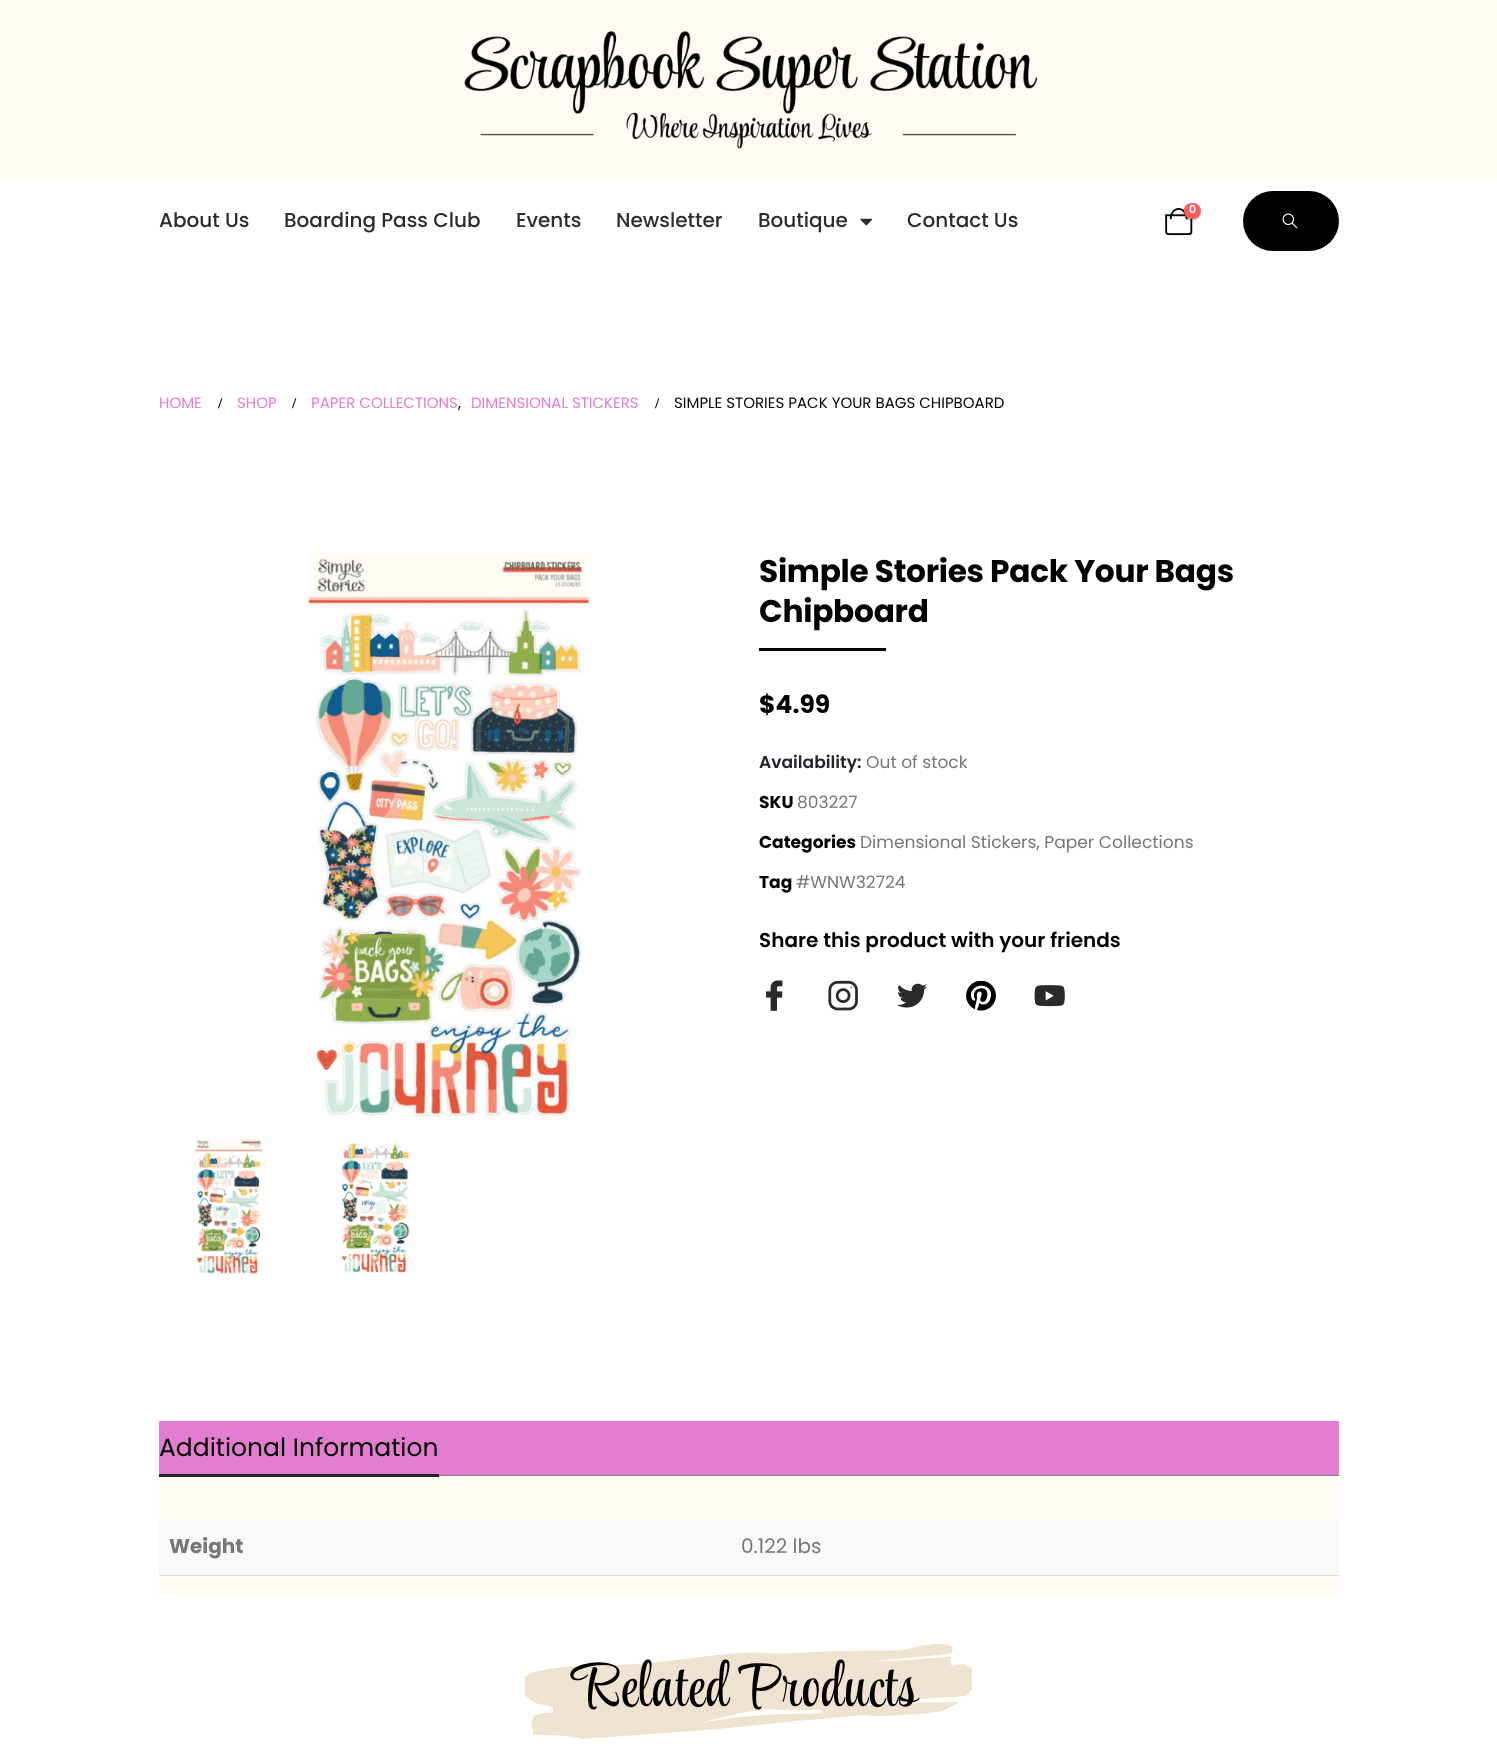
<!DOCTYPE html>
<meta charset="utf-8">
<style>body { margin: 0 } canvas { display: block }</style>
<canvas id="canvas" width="1497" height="1753"></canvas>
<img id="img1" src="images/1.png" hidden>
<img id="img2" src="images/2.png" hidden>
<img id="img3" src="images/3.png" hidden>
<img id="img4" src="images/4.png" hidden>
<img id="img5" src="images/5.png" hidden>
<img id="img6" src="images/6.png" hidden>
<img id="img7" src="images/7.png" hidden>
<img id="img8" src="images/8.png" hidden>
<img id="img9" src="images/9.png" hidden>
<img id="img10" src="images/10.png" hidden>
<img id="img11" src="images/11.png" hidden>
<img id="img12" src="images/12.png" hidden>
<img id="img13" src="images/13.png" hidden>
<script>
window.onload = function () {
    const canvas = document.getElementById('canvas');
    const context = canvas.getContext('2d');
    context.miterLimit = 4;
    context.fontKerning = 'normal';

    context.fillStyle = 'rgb(255, 255, 255)';
    context.fillRect(0, 0, 1497, 1753);
    context.fillStyle = 'rgb(254, 251, 244)';
    context.fillRect(0, 0, 1497, 179);
    context.drawImage(document.getElementById('img1'), 464, 31, 574, 118);
    context.drawImage(document.getElementById('img2'), 1165, 208, 28, 28);
    context.fillStyle = 'rgba(0, 0, 0, 0.3)';
    context.filter = 'blur(1px)';
    context.beginPath();
    context.roundRect(1183, 204, 17, 16, 8);
    context.fill();
    context.filter = 'none';
    context.fillStyle = 'rgb(255, 91, 91)';
    context.beginPath();
    context.roundRect(1184, 203, 17, 16, 8);
    context.fill();
    context.fillStyle = 'rgb(0, 0, 0)';
    context.beginPath();
    context.roundRect(1243, 191, 96, 60, 30);
    context.fill();
    context.drawImage(document.getElementById('img3'), 1282, 213, 16, 16);
    context.drawImage(document.getElementById('img4'), 860, 218, 12, 8);
    context.drawImage(document.getElementById('img5'), 307, 553, 284, 567);
    context.drawImage(document.getElementById('img6'), 194, 1138, 69, 137);
    context.drawImage(document.getElementById('img7'), 340, 1140, 70, 134);
    context.fillRect(759, 648, 127, 3);
    context.drawImage(document.getElementById('img8'), 766, 980, 17, 31);
    context.drawImage(document.getElementById('img9'), 828, 980, 30, 31);
    context.drawImage(document.getElementById('img10'), 897, 983, 30, 25);
    context.drawImage(document.getElementById('img11'), 966, 981, 30, 30);
    context.drawImage(document.getElementById('img12'), 1034, 985, 31, 22);
    context.fillStyle = 'rgb(226, 125, 207)';
    context.fillRect(159, 1421, 1180, 54);
    context.fillStyle = 'rgb(254, 251, 244)';
    context.fillRect(159, 1476, 1180, 119);
    context.fillStyle = 'rgb(34, 37, 41)';
    context.fillRect(159, 1474, 280, 3);
    context.fillStyle = 'rgb(130, 130, 130)';
    context.fillRect(439, 1475, 900, 1);
    context.fillStyle = 'rgb(249, 249, 249)';
    context.fillRect(159, 1520, 1180, 54);
    context.fillStyle = 'rgb(221, 221, 221)';
    context.fillRect(159, 1575, 1181, 1);
    context.drawImage(document.getElementById('img13'), 525, 1644, 447, 95);
    context.font = '600 11px Poppins';
    context.fillStyle = 'rgb(255, 255, 255)';
    context.fillText('0', 1189, 213);
    context.font = '500 20px Poppins';
    context.fillStyle = 'rgb(45, 45, 45)';
    context.fillText('About Us', 159, 227);
    context.fillText('Boarding Pass Club', 284, 227);
    context.fillText('Events', 516, 227);
    context.fillText('Newsletter', 616, 227);
    context.fillText('Boutique', 758, 227);
    context.fillText('Contact Us', 907, 227);
    context.font = '15px Poppins';
    context.fillStyle = 'rgb(226, 125, 207)';
    context.fillText('HOME', 159, 408);
    context.font = 'bold 15px Liberation Serif';
    context.fillStyle = 'rgb(0, 0, 0)';
    context.fillText('/', 218, 408);
    context.font = '15px Poppins';
    context.fillStyle = 'rgb(226, 125, 207)';
    context.fillText('SHOP', 237, 408);
    context.font = 'bold 15px Liberation Serif';
    context.fillStyle = 'rgb(0, 0, 0)';
    context.fillText('/', 292, 408);
    context.font = '15px Poppins';
    context.fillStyle = 'rgb(226, 125, 207)';
    context.fillText('PAPER COLLECTIONS', 311, 408);
    context.fillStyle = 'rgb(0, 0, 0)';
    context.fillText(',', 458, 408);
    context.fillStyle = 'rgb(226, 125, 207)';
    context.fillText('DIMENSIONAL STICKERS', 471, 408);
    context.font = 'bold 15px Liberation Serif';
    context.fillStyle = 'rgb(0, 0, 0)';
    context.fillText('/', 655, 408);
    context.font = '15px Poppins';
    context.fillText('SIMPLE STORIES PACK YOUR BAGS CHIPBOARD', 674, 408);
    context.letterSpacing = '-0.3px';
    context.font = 'bold 31.25px Poppins';
    context.fillText('Simple Stories Pack Your Bags', 759, 582);
    context.fillText('Chipboard', 759, 622);
    context.letterSpacing = '0px';
    context.font = 'bold 25px Poppins';
    context.fillText('$4.99', 759, 713);
    context.font = '600 17.1px Poppins';
    context.fillStyle = 'rgb(34, 37, 41)';
    context.fillText('Availability:', 759, 768);
    context.font = '17.1px Poppins';
    context.fillStyle = 'rgb(119, 119, 119)';
    context.fillText('Out of stock', 866, 768);
    context.font = 'bold 17.1px Poppins';
    context.fillStyle = 'rgb(0, 0, 0)';
    context.fillText('SKU', 759, 808);
    context.font = '17.1px Poppins';
    context.fillStyle = 'rgb(119, 119, 119)';
    context.fillText('803227', 797, 808);
    context.font = 'bold 17.1px Poppins';
    context.fillStyle = 'rgb(0, 0, 0)';
    context.fillText('Categories', 759, 848);
    context.font = '17.1px Poppins';
    context.fillStyle = 'rgb(119, 119, 119)';
    context.fillText('Dimensional Stickers, Paper Collections', 860, 848);
    context.font = 'bold 17.1px Poppins';
    context.fillStyle = 'rgb(0, 0, 0)';
    context.fillText('Tag', 759, 888);
    context.font = '17.1px Poppins';
    context.fillStyle = 'rgb(119, 119, 119)';
    context.fillText('#WNW32724', 796, 888);
    context.font = '600 20px Poppins';
    context.fillStyle = 'rgb(0, 0, 0)';
    context.fillText('Share this product with your friends', 759, 947);
    context.font = '25px Poppins';
    context.fillText('Additional Information', 159, 1456);
    context.font = 'bold 20px Poppins';
    context.fillStyle = 'rgb(119, 119, 119)';
    context.fillText('Weight', 169, 1553);
    context.font = '20px Poppins';
    context.fillText('0.122 lbs', 741, 1553);
    context.letterSpacing = '1.25px';
    context.wordSpacing = '-4px';
    context.font = '61.25px Style Script';
    context.fillStyle = 'rgb(0, 0, 0)';
    context.fillText('Related Products', 576, 1706);
};
</script>
